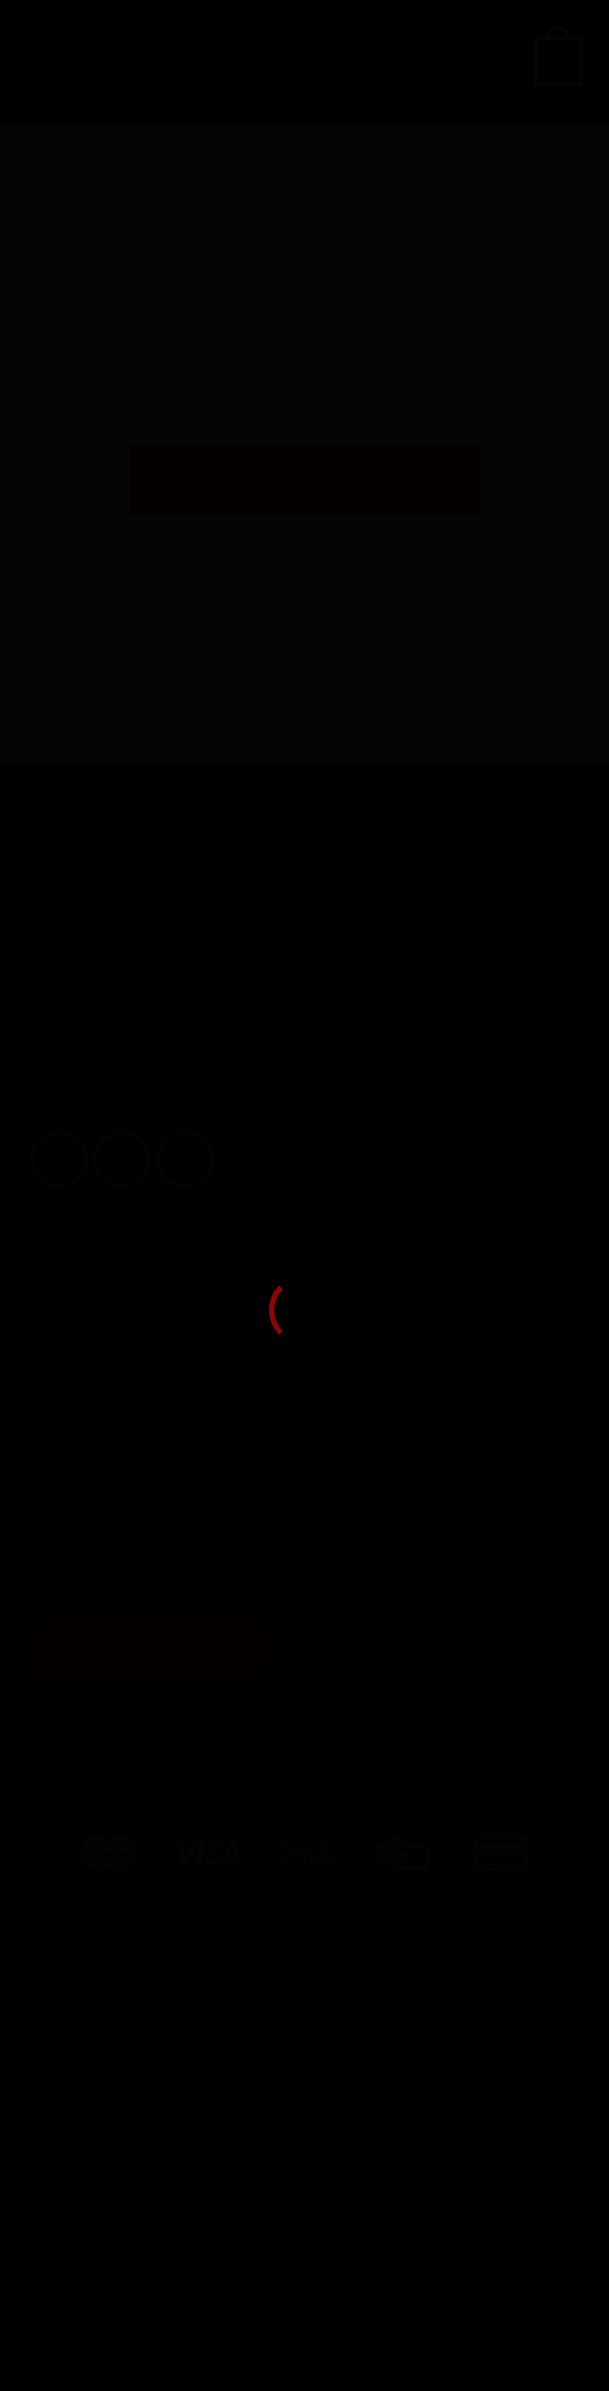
<!DOCTYPE html>
<meta charset="utf-8">
<style>body { margin: 0 } canvas { display: block }</style>
<canvas id="canvas" width="609" height="2391"></canvas>
<img id="img1" src="images/1.png" hidden>
<img id="img2" src="images/2.png" hidden>
<img id="img3" src="images/3.png" hidden>
<img id="img4" src="images/4.png" hidden>
<img id="img5" src="images/5.png" hidden>
<script>
window.onload = function () {
    const canvas = document.getElementById('canvas');
    const context = canvas.getContext('2d');
    context.miterLimit = 4;
    context.fontKerning = 'normal';

    context.fillStyle = 'rgb(0, 0, 0)';
    context.fillRect(0, 0, 609, 2391);
    context.fillStyle = 'rgb(5, 5, 5)';
    context.fillRect(0, 123, 609, 640);
    context.strokeStyle = 'rgb(5, 5, 5)';
    context.lineWidth = 4;
    context.strokeRect(536, 39, 45, 45);
    context.beginPath();
    context.moveTo(558, 26);
    context.bezierCurveTo(566.5, 26, 570.5, 32.5, 570.5, 40);
    context.lineTo(546, 40);
    context.bezierCurveTo(546, 32.5, 550, 26, 558, 26);
    context.closePath();
    context.moveTo(558, 30);
    context.bezierCurveTo(564.5, 30, 567, 34.5, 567, 40);
    context.lineTo(549.5, 40);
    context.bezierCurveTo(549.5, 34.5, 552, 30, 558, 30);
    context.closePath();
    context.fill('evenodd');
    context.fillStyle = 'rgb(4, 0, 0)';
    context.beginPath();
    context.rect(131, 446, 348, 68);
    context.fill();
    context.strokeStyle = 'rgb(3, 0, 0)';
    context.lineWidth = 2;
    context.stroke();
    context.beginPath();
    context.roundRect(32, 1133, 54, 53, 26.5);
    context.strokeStyle = 'rgb(3, 3, 3)';
    context.lineWidth = 4;
    context.stroke();
    context.beginPath();
    context.roundRect(95, 1133, 54, 53, 26.5);
    context.stroke();
    context.beginPath();
    context.roundRect(158, 1133, 54, 53, 26.5);
    context.stroke();
    context.beginPath();
    context.roundRect(26, 1615, 245, 69, 34.5);
    context.fill();
    context.drawImage(document.getElementById('img1'), 79, 1836, 59, 35);
    context.drawImage(document.getElementById('img2'), 172, 1841, 70, 24);
    context.drawImage(document.getElementById('img3'), 275, 1843, 58, 21);
    context.drawImage(document.getElementById('img4'), 376, 1836, 53, 35);
    context.drawImage(document.getElementById('img5'), 473, 1836, 55, 35);
    context.beginPath();
    context.moveTo(281, 1333);
    context.bezierCurveTo(268.5, 1320.5, 268.5, 1299.5, 281, 1287.5);
    context.strokeStyle = 'rgb(143, 4, 4)';
    context.lineWidth = 5.2;
    context.stroke();
};
</script>
